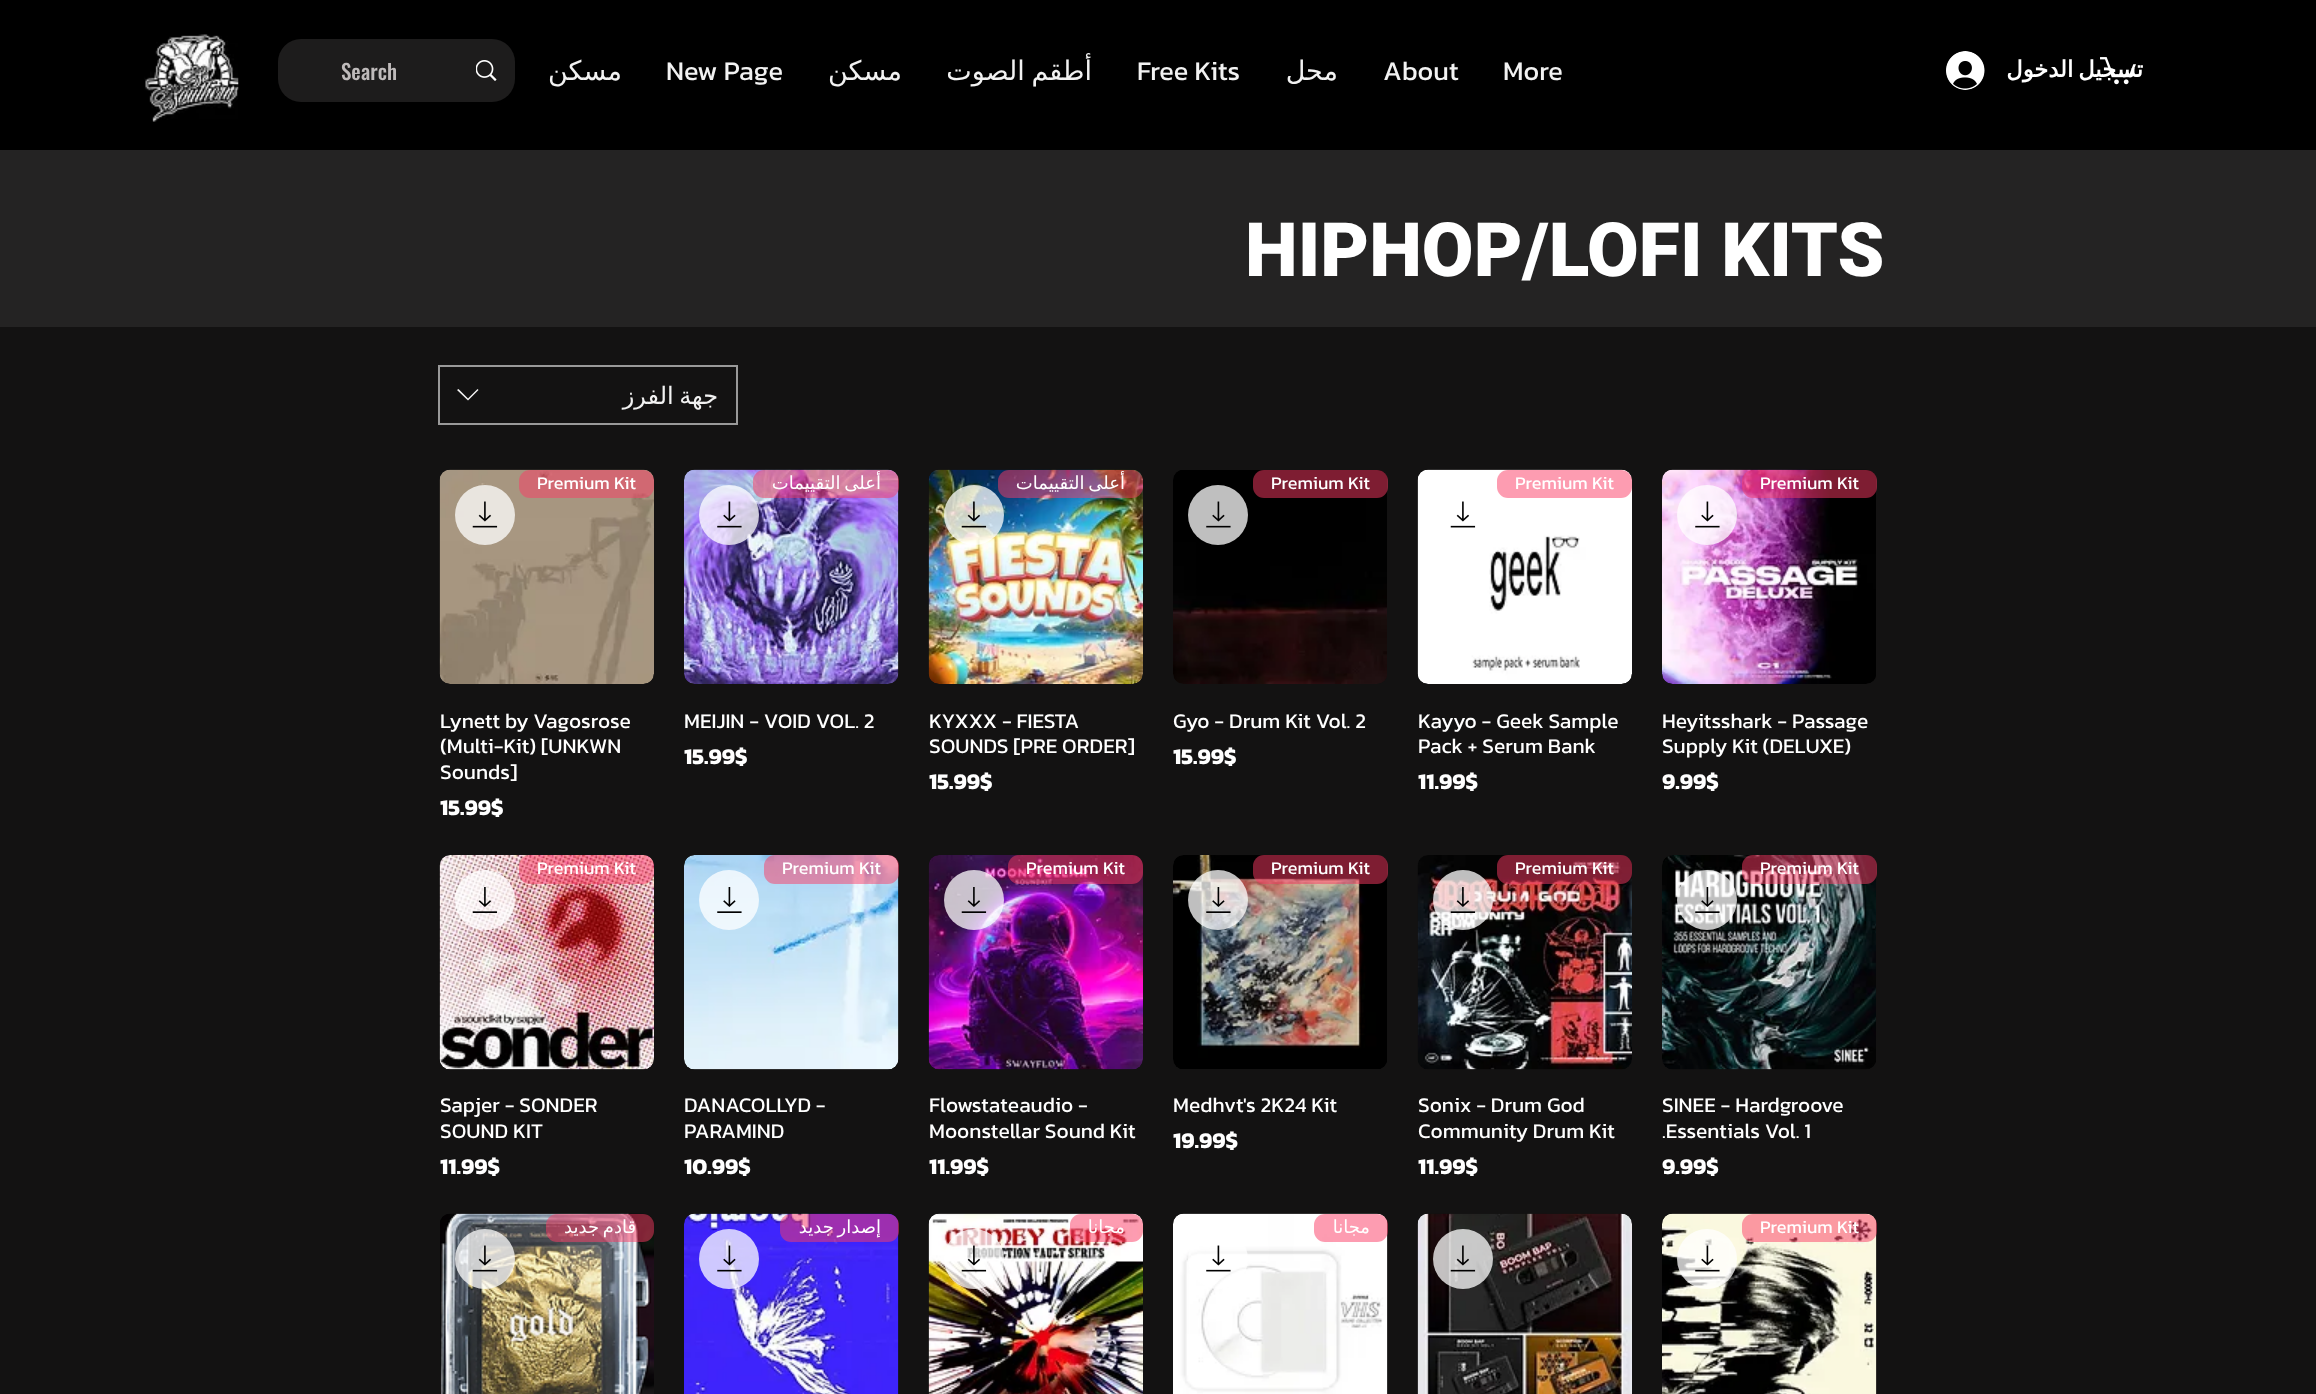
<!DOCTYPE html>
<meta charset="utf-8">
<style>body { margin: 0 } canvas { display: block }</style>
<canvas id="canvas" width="2316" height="1394"></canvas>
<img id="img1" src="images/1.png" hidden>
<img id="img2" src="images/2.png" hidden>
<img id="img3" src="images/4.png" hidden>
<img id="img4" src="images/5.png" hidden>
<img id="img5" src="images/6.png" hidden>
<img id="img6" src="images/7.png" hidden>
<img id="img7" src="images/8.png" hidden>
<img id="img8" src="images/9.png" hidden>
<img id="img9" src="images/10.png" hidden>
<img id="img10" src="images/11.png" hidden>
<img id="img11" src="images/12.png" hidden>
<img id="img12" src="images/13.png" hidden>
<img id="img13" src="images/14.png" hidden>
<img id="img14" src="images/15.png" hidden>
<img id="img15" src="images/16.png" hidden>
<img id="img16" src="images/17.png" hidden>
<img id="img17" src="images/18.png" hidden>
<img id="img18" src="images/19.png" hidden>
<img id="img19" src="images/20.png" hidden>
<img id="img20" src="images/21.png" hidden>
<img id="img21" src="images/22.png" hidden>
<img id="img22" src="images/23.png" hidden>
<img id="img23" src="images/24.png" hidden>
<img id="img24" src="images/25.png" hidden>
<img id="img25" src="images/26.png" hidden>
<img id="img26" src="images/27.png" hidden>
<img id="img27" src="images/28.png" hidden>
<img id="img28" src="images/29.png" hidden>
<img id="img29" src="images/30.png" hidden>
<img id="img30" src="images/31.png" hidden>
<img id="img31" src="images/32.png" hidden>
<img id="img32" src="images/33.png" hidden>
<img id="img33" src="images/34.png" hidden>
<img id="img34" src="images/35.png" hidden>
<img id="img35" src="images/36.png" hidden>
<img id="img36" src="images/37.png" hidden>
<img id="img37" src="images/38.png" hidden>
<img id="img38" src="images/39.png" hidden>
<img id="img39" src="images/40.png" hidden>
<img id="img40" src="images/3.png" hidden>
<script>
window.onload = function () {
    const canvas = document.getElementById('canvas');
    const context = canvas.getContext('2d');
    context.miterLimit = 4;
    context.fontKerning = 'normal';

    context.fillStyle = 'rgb(19, 18, 18)';
    context.fillRect(0, 0, 2316, 1394);
    context.fillStyle = 'rgb(0, 0, 0)';
    context.fillRect(0, 0, 2316, 150);
    context.drawImage(document.getElementById('img1'), 144, 34, 95, 88);
    context.fillStyle = 'rgb(29, 28, 28)';
    context.beginPath();
    context.roundRect(278, 39, 237, 63, 23);
    context.fill();
    context.drawImage(document.getElementById('img2'), 476, 60, 21, 21);
    context.drawImage(document.getElementById('img3'), 1946, 51, 39, 39);
    context.fillStyle = 'rgb(36, 35, 35)';
    context.fillRect(0, 150, 2316, 177);
    context.strokeStyle = 'rgb(153, 153, 153)';
    context.lineWidth = 2;
    context.strokeRect(439, 366, 298, 58);
    context.fillStyle = 'rgb(242, 242, 242)';
    context.beginPath();
    context.moveTo(477.5, 389);
    context.lineTo(478.5, 390);
    context.lineTo(468, 400.5);
    context.lineTo(457, 390);
    context.lineTo(458.5, 389);
    context.lineTo(468, 398.5);
    context.closePath();
    context.fill('evenodd');
    context.drawImage(document.getElementById('img4'), 439, 469, 215, 215);
    context.fillStyle = 'rgba(255, 255, 255, 0.75)';
    context.beginPath();
    context.arc(485, 515, 30, 0, 2 * Math.PI);
    context.fill();
    context.drawImage(document.getElementById('img5'), 472, 501, 26, 27);
    context.fillStyle = 'rgba(251, 58, 100, 0.5)';
    context.beginPath();
    context.roundRect(519, 470, 135, 28, 11);
    context.fill();
    context.drawImage(document.getElementById('img6'), 684, 469, 215, 215);
    context.fillStyle = 'rgba(255, 255, 255, 0.75)';
    context.beginPath();
    context.arc(729, 515, 30, 0, 2 * Math.PI);
    context.fill();
    context.drawImage(document.getElementById('img7'), 717, 501, 25, 27);
    context.fillStyle = 'rgba(251, 58, 100, 0.5)';
    context.beginPath();
    context.roundRect(753, 470, 146, 28, 11);
    context.fill();
    context.drawImage(document.getElementById('img8'), 928, 469, 215, 215);
    context.fillStyle = 'rgba(255, 255, 255, 0.75)';
    context.beginPath();
    context.arc(974, 515, 30, 0, 2 * Math.PI);
    context.fill();
    context.drawImage(document.getElementById('img9'), 961, 501, 26, 27);
    context.fillStyle = 'rgba(251, 58, 100, 0.5)';
    context.beginPath();
    context.roundRect(998, 470, 145, 28, 11);
    context.fill();
    context.drawImage(document.getElementById('img10'), 1173, 470, 214, 214);
    context.fillStyle = 'rgb(191, 191, 191)';
    context.beginPath();
    context.arc(1218, 515, 30, 0, 2 * Math.PI);
    context.fill();
    context.drawImage(document.getElementById('img11'), 1206, 501, 25, 27);
    context.fillStyle = 'rgba(251, 58, 100, 0.5)';
    context.beginPath();
    context.roundRect(1253, 470, 135, 28, 11);
    context.fill();
    context.drawImage(document.getElementById('img12'), 1417, 469, 215, 215);
    context.drawImage(document.getElementById('img13'), 1450, 501, 26, 27);
    context.beginPath();
    context.roundRect(1497, 470, 135, 28, 11);
    context.fill();
    context.drawImage(document.getElementById('img14'), 1662, 469, 214, 215);
    context.fillStyle = 'rgba(255, 255, 255, 0.75)';
    context.beginPath();
    context.arc(1707, 515, 30, 0, 2 * Math.PI);
    context.fill();
    context.drawImage(document.getElementById('img15'), 1695, 501, 25, 27);
    context.fillStyle = 'rgba(251, 58, 100, 0.5)';
    context.beginPath();
    context.roundRect(1742, 470, 135, 28, 11);
    context.fill();
    context.drawImage(document.getElementById('img16'), 439, 855, 215, 215);
    context.fillStyle = 'rgba(255, 255, 255, 0.75)';
    context.beginPath();
    context.arc(485, 900, 30, 0, 2 * Math.PI);
    context.fill();
    context.drawImage(document.getElementById('img17'), 472, 887, 26, 26);
    context.fillStyle = 'rgba(251, 58, 100, 0.5)';
    context.beginPath();
    context.roundRect(519, 855, 135, 29, 11);
    context.fill();
    context.drawImage(document.getElementById('img18'), 684, 855, 215, 215);
    context.fillStyle = 'rgba(255, 255, 255, 0.75)';
    context.beginPath();
    context.arc(729, 900, 30, 0, 2 * Math.PI);
    context.fill();
    context.drawImage(document.getElementById('img19'), 717, 887, 25, 26);
    context.fillStyle = 'rgba(251, 58, 100, 0.5)';
    context.beginPath();
    context.roundRect(764, 855, 135, 29, 11);
    context.fill();
    context.drawImage(document.getElementById('img20'), 928, 855, 215, 215);
    context.fillStyle = 'rgba(255, 255, 255, 0.75)';
    context.beginPath();
    context.arc(974, 900, 30, 0, 2 * Math.PI);
    context.fill();
    context.drawImage(document.getElementById('img21'), 961, 887, 26, 26);
    context.fillStyle = 'rgba(251, 58, 100, 0.5)';
    context.beginPath();
    context.roundRect(1008, 855, 135, 29, 11);
    context.fill();
    context.drawImage(document.getElementById('img22'), 1173, 855, 214, 214);
    context.fillStyle = 'rgba(255, 255, 255, 0.75)';
    context.beginPath();
    context.arc(1218, 900, 30, 0, 2 * Math.PI);
    context.fill();
    context.drawImage(document.getElementById('img23'), 1206, 887, 25, 26);
    context.fillStyle = 'rgba(251, 58, 100, 0.5)';
    context.beginPath();
    context.roundRect(1253, 855, 135, 29, 11);
    context.fill();
    context.drawImage(document.getElementById('img24'), 1417, 855, 215, 215);
    context.fillStyle = 'rgba(255, 255, 255, 0.75)';
    context.beginPath();
    context.arc(1463, 900, 30, 0, 2 * Math.PI);
    context.fill();
    context.drawImage(document.getElementById('img25'), 1450, 887, 26, 26);
    context.fillStyle = 'rgba(251, 58, 100, 0.5)';
    context.beginPath();
    context.roundRect(1497, 855, 135, 29, 11);
    context.fill();
    context.drawImage(document.getElementById('img26'), 1662, 855, 214, 215);
    context.fillStyle = 'rgba(255, 255, 255, 0.75)';
    context.beginPath();
    context.arc(1707, 900, 30, 0, 2 * Math.PI);
    context.fill();
    context.drawImage(document.getElementById('img27'), 1695, 887, 25, 26);
    context.fillStyle = 'rgba(251, 58, 100, 0.5)';
    context.beginPath();
    context.roundRect(1742, 855, 135, 29, 11);
    context.fill();
    context.drawImage(document.getElementById('img28'), 440, 1213, 214, 181);
    context.fillStyle = 'rgba(255, 255, 255, 0.75)';
    context.beginPath();
    context.arc(485, 1259, 30, 0, 2 * Math.PI);
    context.fill();
    context.drawImage(document.getElementById('img29'), 472, 1245, 26, 27);
    context.fillStyle = 'rgba(251, 58, 100, 0.5)';
    context.beginPath();
    context.roundRect(546, 1214, 108, 28, 11);
    context.fill();
    context.drawImage(document.getElementById('img30'), 684, 1213, 215, 181);
    context.fillStyle = 'rgba(255, 255, 255, 0.75)';
    context.beginPath();
    context.arc(729, 1259, 30, 0, 2 * Math.PI);
    context.fill();
    context.drawImage(document.getElementById('img31'), 717, 1245, 25, 27);
    context.fillStyle = 'rgba(251, 58, 100, 0.5)';
    context.beginPath();
    context.roundRect(780, 1214, 119, 28, 11);
    context.fill();
    context.drawImage(document.getElementById('img32'), 928, 1213, 215, 181);
    context.fillStyle = 'rgba(255, 255, 255, 0.75)';
    context.beginPath();
    context.arc(974, 1259, 30, 0, 2 * Math.PI);
    context.fill();
    context.drawImage(document.getElementById('img33'), 961, 1245, 26, 27);
    context.fillStyle = 'rgba(251, 58, 100, 0.5)';
    context.beginPath();
    context.roundRect(1070, 1214, 73, 28, 11);
    context.fill();
    context.drawImage(document.getElementById('img34'), 1173, 1213, 215, 181);
    context.fillStyle = 'rgba(255, 255, 255, 0.75)';
    context.beginPath();
    context.arc(1218, 1259, 30, 0, 2 * Math.PI);
    context.fill();
    context.drawImage(document.getElementById('img35'), 1206, 1245, 25, 27);
    context.fillStyle = 'rgba(251, 58, 100, 0.5)';
    context.beginPath();
    context.roundRect(1314, 1214, 74, 28, 11);
    context.fill();
    context.drawImage(document.getElementById('img36'), 1417, 1213, 215, 181);
    context.fillStyle = 'rgba(255, 255, 255, 0.75)';
    context.beginPath();
    context.arc(1463, 1259, 30, 0, 2 * Math.PI);
    context.fill();
    context.drawImage(document.getElementById('img37'), 1450, 1245, 26, 27);
    context.drawImage(document.getElementById('img38'), 1662, 1213, 215, 181);
    context.beginPath();
    context.arc(1707, 1259, 30, 0, 2 * Math.PI);
    context.fill();
    context.drawImage(document.getElementById('img39'), 1695, 1245, 25, 27);
    context.fillStyle = 'rgba(251, 58, 100, 0.5)';
    context.beginPath();
    context.roundRect(1742, 1214, 135, 28, 11);
    context.fill();
    context.font = '500 21px Oswald';
    context.fillStyle = 'rgb(191, 187, 187)';
    context.fillText('Search', 341, 80);
    context.direction = 'rtl';
    context.font = '27px DejaVu Sans';
    context.fillStyle = 'rgb(242, 242, 242)';
    context.fillText('مسكن', 622, 80);
    context.direction = 'ltr';
    context.font = '27px Kanit';
    context.fillText('New Page', 666, 80);
    context.direction = 'rtl';
    context.font = '27px DejaVu Sans';
    context.fillText('مسكن', 902, 80);
    context.wordSpacing = '-2px';
    context.fillText('أطقم الصوت', 1092, 80);
    context.wordSpacing = '0px';
    context.direction = 'ltr';
    context.font = '27px Kanit';
    context.fillText('Free Kits', 1137, 80);
    context.direction = 'rtl';
    context.font = '27px DejaVu Sans';
    context.fillText('محل', 1338, 80);
    context.direction = 'ltr';
    context.font = '27px Kanit';
    context.fillText('About', 1383, 80);
    context.fillText('More', 1503, 80);
    context.wordSpacing = '-2px';
    context.direction = 'rtl';
    context.font = 'bold 22.5px DejaVu Sans';
    context.fillStyle = 'rgb(255, 255, 255)';
    context.fillText('تسجيل الدخول', 2143, 77);
    context.drawImage(document.getElementById('img40'), 2100, 57, 36, 28);
    context.wordSpacing = '0px';
    context.direction = 'ltr';
    context.font = '900 75px Roboto';
    context.fillText('HIPHOP/LOFI KITS', 1245, 276);
    context.wordSpacing = '-2px';
    context.direction = 'rtl';
    context.font = '24px DejaVu Sans';
    context.fillStyle = 'rgb(242, 242, 242)';
    context.fillText('جهة الفرز', 718, 404);
    context.wordSpacing = '0px';
    context.direction = 'ltr';
    context.font = '18px Kanit';
    context.fillStyle = 'rgb(255, 255, 255)';
    context.fillText('Premium Kit', 537, 489);
    context.font = '21px Kanit';
    context.fillText('Lynett by Vagosrose', 440, 728);
    context.fillText('(Multi-Kit) [UNKWN', 440, 753);
    context.fillText('Sounds]', 440, 779);
    context.font = 'bold 22.5px Kanit';
    context.fillText('15.99$', 440, 815);
    context.wordSpacing = '-2px';
    context.direction = 'rtl';
    context.font = '18px DejaVu Sans';
    context.fillText('أعلى التقييمات', 881, 489);
    context.wordSpacing = '0px';
    context.direction = 'ltr';
    context.font = '21px Kanit';
    context.fillText('MEIJIN - VOID VOL. 2', 684, 728);
    context.font = 'bold 22.5px Kanit';
    context.fillText('15.99$', 684, 764);
    context.wordSpacing = '-2px';
    context.direction = 'rtl';
    context.font = '18px DejaVu Sans';
    context.fillText('أعلى التقييمات', 1125, 489);
    context.wordSpacing = '0px';
    context.direction = 'ltr';
    context.font = '21px Kanit';
    context.fillText('KYXXX - FIESTA', 929, 728);
    context.fillText('SOUNDS [PRE ORDER]', 929, 753);
    context.font = 'bold 22.5px Kanit';
    context.fillText('15.99$', 929, 789);
    context.font = '18px Kanit';
    context.fillText('Premium Kit', 1271, 489);
    context.font = '21px Kanit';
    context.fillText('Gyo - Drum Kit Vol. 2', 1173, 728);
    context.font = 'bold 22.5px Kanit';
    context.fillText('15.99$', 1173, 764);
    context.font = '18px Kanit';
    context.fillText('Premium Kit', 1515, 489);
    context.font = '21px Kanit';
    context.fillText('Kayyo - Geek Sample', 1418, 728);
    context.fillText('Pack + Serum Bank', 1418, 753);
    context.font = 'bold 22.5px Kanit';
    context.fillText('11.99$', 1418, 789);
    context.font = '18px Kanit';
    context.fillText('Premium Kit', 1760, 489);
    context.font = '21px Kanit';
    context.fillText('Heyitsshark - Passage', 1662, 728);
    context.fillText('Supply Kit (DELUXE)', 1662, 753);
    context.font = 'bold 22.5px Kanit';
    context.fillText('9.99$', 1662, 789);
    context.font = '18px Kanit';
    context.fillText('Premium Kit', 537, 874);
    context.font = '21px Kanit';
    context.fillText('Sapjer - SONDER', 440, 1112);
    context.fillText('SOUND KIT', 440, 1138);
    context.font = 'bold 22.5px Kanit';
    context.fillText('11.99$', 440, 1174);
    context.font = '18px Kanit';
    context.fillText('Premium Kit', 782, 874);
    context.font = '21px Kanit';
    context.fillText('DANACOLLYD -', 684, 1112);
    context.fillText('PARAMIND', 684, 1138);
    context.font = 'bold 22.5px Kanit';
    context.fillText('10.99$', 684, 1174);
    context.font = '18px Kanit';
    context.fillText('Premium Kit', 1026, 874);
    context.font = '21px Kanit';
    context.fillText('Flowstateaudio -', 929, 1112);
    context.fillText('Moonstellar Sound Kit', 929, 1138);
    context.font = 'bold 22.5px Kanit';
    context.fillText('11.99$', 929, 1174);
    context.font = '18px Kanit';
    context.fillText('Premium Kit', 1271, 874);
    context.font = '21px Kanit';
    context.fillText('Medhvt\'s 2K24 Kit', 1173, 1112);
    context.font = 'bold 22.5px Kanit';
    context.fillText('19.99$', 1173, 1148);
    context.font = '18px Kanit';
    context.fillText('Premium Kit', 1515, 874);
    context.font = '21px Kanit';
    context.fillText('Sonix - Drum God', 1418, 1112);
    context.fillText('Community Drum Kit', 1418, 1138);
    context.font = 'bold 22.5px Kanit';
    context.fillText('11.99$', 1418, 1174);
    context.font = '18px Kanit';
    context.fillText('Premium Kit', 1760, 874);
    context.font = '21px Kanit';
    context.fillText('SINEE - Hardgroove', 1662, 1112);
    context.fillText('.Essentials Vol. 1', 1662, 1138);
    context.font = 'bold 22.5px Kanit';
    context.fillText('9.99$', 1662, 1174);
    context.wordSpacing = '-2px';
    context.direction = 'rtl';
    context.font = '18px DejaVu Sans';
    context.fillText('قادم جديد', 636, 1233);
    context.fillText('إصدار جديد', 881, 1233);
    context.wordSpacing = '0px';
    context.fillText('مجانا', 1125, 1233);
    context.fillText('مجانا', 1370, 1233);
    context.direction = 'ltr';
    context.font = '18px Kanit';
    context.fillText('Premium Kit', 1760, 1233);
};
</script>
